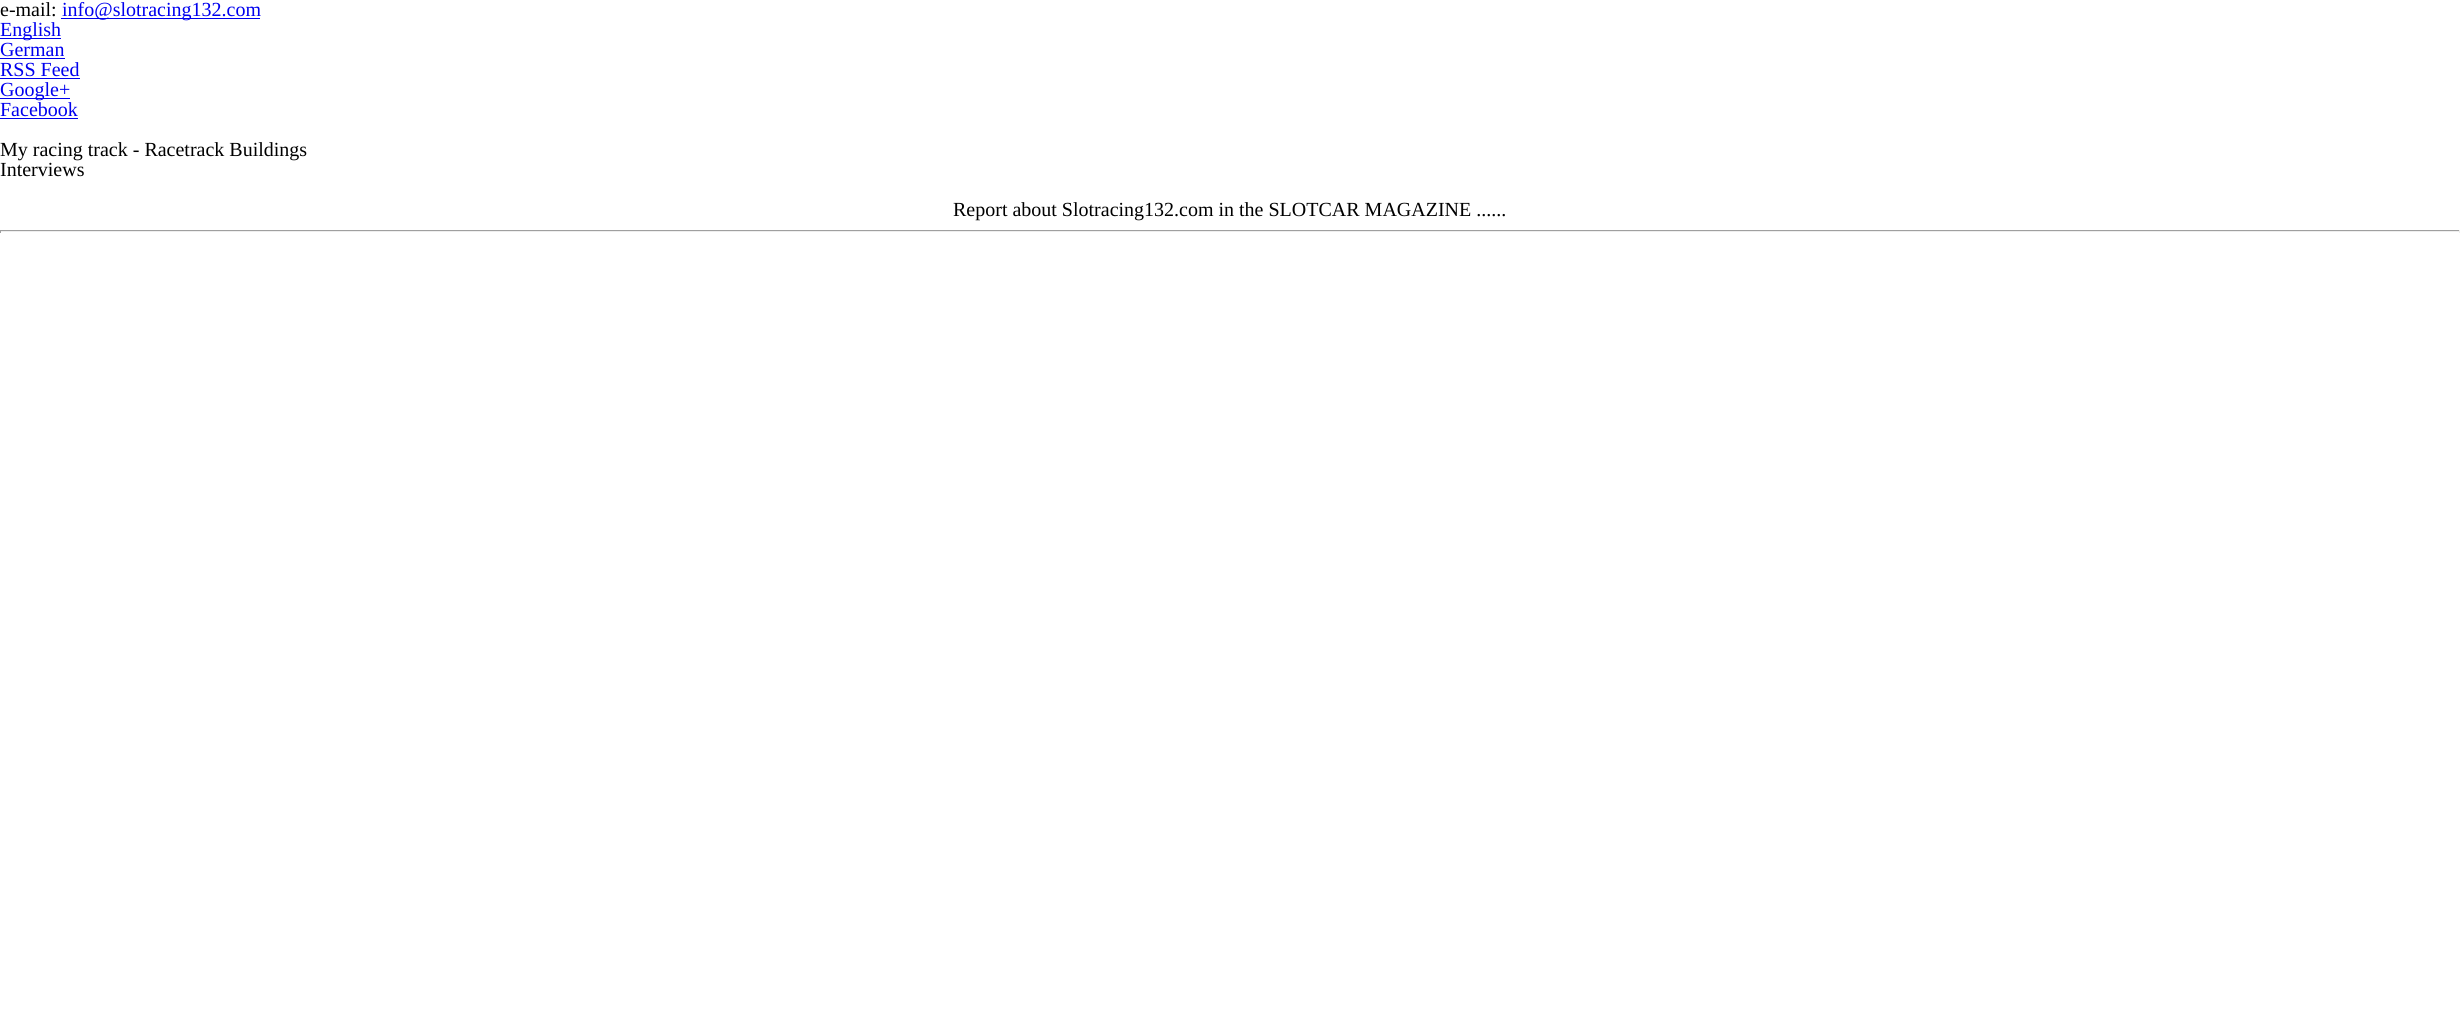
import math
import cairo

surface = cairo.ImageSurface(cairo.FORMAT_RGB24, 2460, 1015)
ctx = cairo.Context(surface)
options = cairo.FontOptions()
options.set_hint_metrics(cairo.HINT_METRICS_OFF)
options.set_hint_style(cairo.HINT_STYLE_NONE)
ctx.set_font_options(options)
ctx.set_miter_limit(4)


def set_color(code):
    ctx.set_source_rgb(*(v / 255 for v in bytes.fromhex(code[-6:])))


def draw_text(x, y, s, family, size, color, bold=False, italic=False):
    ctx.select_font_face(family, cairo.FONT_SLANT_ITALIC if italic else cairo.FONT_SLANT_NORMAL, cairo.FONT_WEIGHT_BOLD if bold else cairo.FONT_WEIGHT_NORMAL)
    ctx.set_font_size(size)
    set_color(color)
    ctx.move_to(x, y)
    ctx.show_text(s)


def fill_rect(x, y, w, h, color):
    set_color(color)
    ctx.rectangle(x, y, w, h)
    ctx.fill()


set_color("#ffffff")
ctx.paint()
draw_text(0, 16, "e-mail:", "Liberation Serif", 20, "#000000")
fill_rect(61, 18, 199, 1, "#0000ee")
draw_text(62, 16, "info@slotracing132.com", "Liberation Serif", 20, "#0000ee")
fill_rect(0, 38, 61, 1, "#0000ee")
draw_text(0, 36, "English", "Liberation Serif", 20, "#0000ee")
draw_text(0, 56, "German", "Liberation Serif", 20, "#0000ee")
fill_rect(0, 58, 65, 1, "#0000ee")
draw_text(0, 76, "RSS Feed", "Liberation Serif", 20, "#0000ee")
fill_rect(0, 78, 80, 1, "#0000ee")
fill_rect(0, 98, 70, 1, "#0000ee")
draw_text(0, 96, "Google+", "Liberation Serif", 20, "#0000ee")
draw_text(0, 116, "Facebook", "Liberation Serif", 20, "#0000ee")
fill_rect(0, 118, 78, 1, "#0000ee")
draw_text(0, 156, "My racing track - Racetrack Buildings", "Liberation Serif", 20, "#000000")
draw_text(0, 176, "Interviews", "Liberation Serif", 20, "#000000")
draw_text(953, 216, "Report about Slotracing132.com in the SLOTCAR MAGAZINE ......", "Liberation Serif", 20, "#000000")
fill_rect(0, 230, 2460, 1, "#9f9f9f")
fill_rect(2459, 230, 1, 3, "#eeeeee")
fill_rect(0, 231, 2460, 1, "#eeeeee")
fill_rect(0, 230, 1, 3, "#9f9f9f")
surface.write_to_png("output.png")
